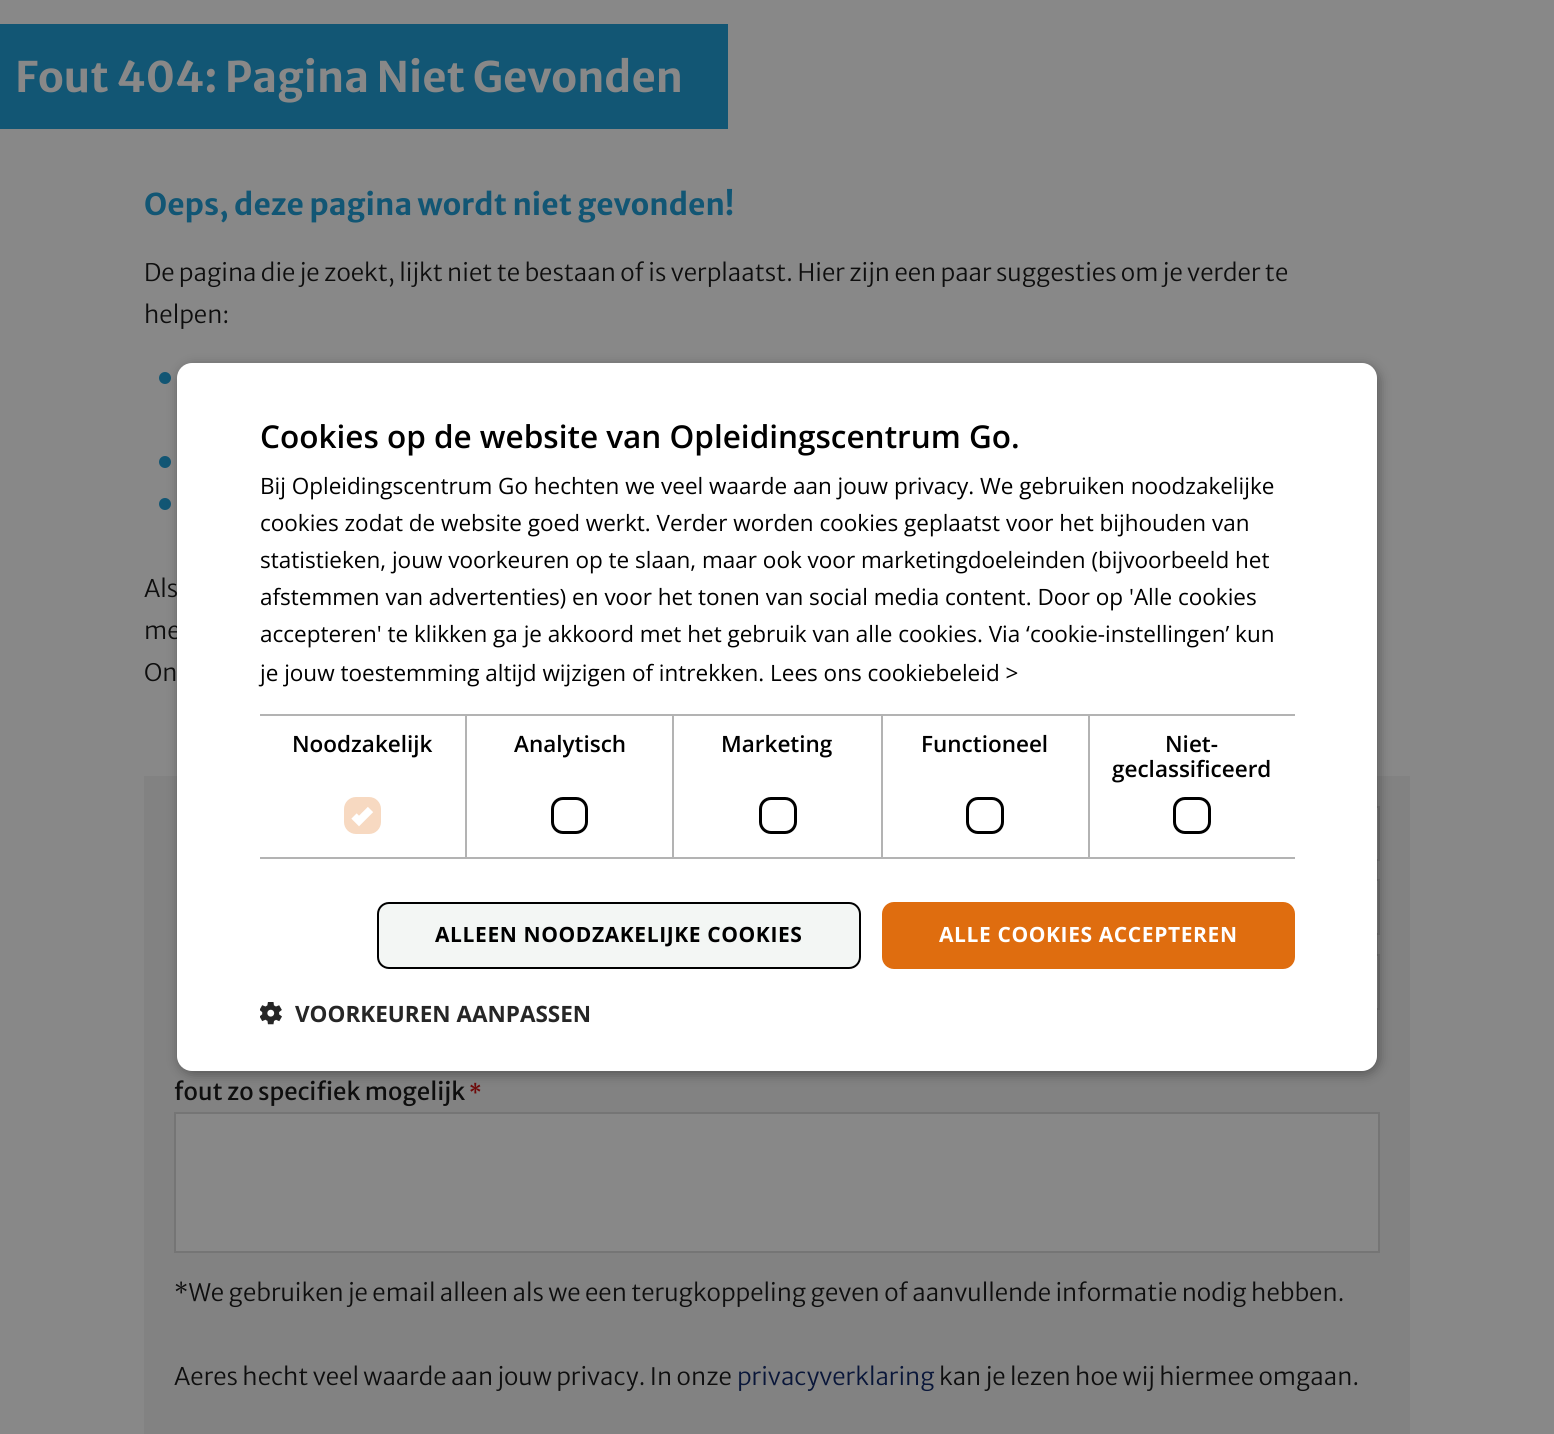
import math
import cairo

surface = cairo.ImageSurface(cairo.FORMAT_RGB24, 1554, 1434)
ctx = cairo.Context(surface)
options = cairo.FontOptions()
options.set_hint_metrics(cairo.HINT_METRICS_OFF)
options.set_hint_style(cairo.HINT_STYLE_NONE)
ctx.set_font_options(options)
ctx.set_miter_limit(4)


def set_color(code):
    ctx.set_source_rgb(*(v / 255 for v in bytes.fromhex(code[-6:])))


def draw_text(x, y, s, family, size, color, bold=False, italic=False):
    ctx.select_font_face(family, cairo.FONT_SLANT_ITALIC if italic else cairo.FONT_SLANT_NORMAL, cairo.FONT_WEIGHT_BOLD if bold else cairo.FONT_WEIGHT_NORMAL)
    ctx.set_font_size(size)
    set_color(color)
    ctx.move_to(x, y)
    ctx.show_text(s)


def draw_spaced(x, y, s, letter, word):
    ctx.move_to(x, y)
    for ch in s:
        ctx.show_text(ch)
        ctx.rel_move_to(letter + word * (ch == ' '), 0)


def fill_rect(x, y, w, h, color):
    set_color(color)
    ctx.rectangle(x, y, w, h)
    ctx.fill()


def rounded_rect(x, y, w, h, r):
    ctx.new_sub_path()
    for i, (u, v) in enumerate([(x + w - r, y + h - r), (x + r, y + h - r), (x + r, y + r), (x + w - r, y + r)]):
        ctx.arc(u, v, r, i * math.pi / 2, (i + 1) * math.pi / 2)
    ctx.close_path()


def draw_shadow(x, y, w, h, r, blur, alpha):
    ctx.push_group_with_content(cairo.CONTENT_ALPHA)
    ctx.set_operator(cairo.OPERATOR_SOURCE)
    for i in range(15, -16, -2):
        e = blur * i / 6
        if min(w, h) + 2 * e > 0:
            ctx.set_source_rgba(0, 0, 0, alpha * math.erfc((i - 1) / 8.5) / 2)
            rounded_rect(x - e, y - e, w + 2 * e, h + 2 * e, max(0, min(r + e + blur * .6, min(w, h) / 2 + e)))
            ctx.fill()
    ctx.mask(ctx.pop_group())


def draw_image(path, x, y, w, h):
    ctx.save()
    ctx.set_source_surface(cairo.ImageSurface.create_from_png(path), x, y)
    ctx.rectangle(x, y, w, h)
    ctx.fill()
    ctx.restore()


set_color("#888888")
ctx.paint()
fill_rect(0, 24, 728, 105, "#125674")
draw_text(15, 92, "Fout 404: Pagina Niet Gevonden", "Merriweather Sans", 42, "#888888", bold=True)
draw_text(144, 215, "Oeps, deze pagina wordt niet gevonden!", "Merriweather Sans", 30, "#125674", bold=True)
draw_text(144, 281, "De pagina die je zoekt, lijkt niet te bestaan of is verplaatst. Hier zijn een paar suggesties om je verder te", "Merriweather Sans Light", 24, "#0e0e0e")
draw_text(144, 323, "helpen:", "Merriweather Sans Light", 24, "#0e0e0e")
set_color("#125674")
ctx.new_path()
ctx.arc(165, 378, 6, 0, 2 * math.pi)
ctx.fill()
ctx.arc(165, 462, 6, 0, 2 * math.pi)
ctx.fill()
ctx.arc(165, 504, 6, 0, 2 * math.pi)
ctx.fill()
draw_text(144, 597, "Als", "Merriweather Sans Light", 24, "#0e0e0e")
draw_text(144, 639, "me", "Merriweather Sans Light", 24, "#0e0e0e")
draw_text(144, 681, "On", "Merriweather Sans Light", 24, "#0e0e0e")
fill_rect(144, 776, 1266, 658, "#828282")
fill_rect(1377, 808, 1, 51, "#888888")
ctx.rectangle(537, 807, 842, 53)
set_color("#757575")
ctx.stroke()
fill_rect(1377, 881, 1, 52, "#888888")
ctx.rectangle(537, 880, 842, 54)
set_color("#757575")
ctx.stroke()
fill_rect(1377, 956, 1, 52, "#888888")
ctx.rectangle(537, 955, 842, 54)
set_color("#757575")
ctx.stroke()
draw_text(174, 1100, "fout zo specifiek mogelijk", "Merriweather Sans", 24, "#0e0e0e")
draw_text(469, 1100, "*", "Merriweather Sans", 21, "#6f0909")
set_color("#888888")
ctx.rectangle(175, 1113, 1204, 139)
ctx.fill_preserve()
set_color("#757575")
ctx.stroke()
draw_text(174, 1301, "*We gebruiken je email alleen als we een terugkoppeling geven of aanvullende informatie nodig hebben.", "Merriweather Sans Light", 24, "#0e0e0e")
draw_text(174, 1385, "Aeres hecht veel waarde aan jouw privacy. In onze", "Merriweather Sans Light", 24, "#0e0e0e")
draw_text(737, 1385, "privacyverklaring", "Merriweather Sans Light", 24, "#091639")
draw_text(939, 1385, "kan je lezen hoe wij hiermee omgaan.", "Merriweather Sans Light", 24, "#0e0e0e")
set_color("#000000")
draw_shadow(179, 366, 1200, 708, 15, 6, 0.35)
set_color("#ffffff")
rounded_rect(177, 363, 1200, 708, 15)
ctx.fill()
draw_text(260, 448, "Cookies op de website van Opleidingscentrum Go.", "Open Sans SemiBold", 31.5, "#000000")
draw_text(260, 494, "Bij Opleidingscentrum Go hechten we veel waarde aan jouw privacy. We gebruiken noodzakelijke", "Open Sans", 22.5, "#000000")
draw_text(260, 531, "cookies zodat de website goed werkt. Verder worden cookies geplaatst voor het bijhouden van", "Open Sans", 22.5, "#000000")
draw_text(260, 568, "statistieken, jouw voorkeuren op te slaan, maar ook voor marketingdoeleinden (bijvoorbeeld het", "Open Sans", 22.5, "#000000")
draw_text(260, 605, "afstemmen van advertenties) en voor het tonen van social media content. Door op 'Alle cookies", "Open Sans", 22.5, "#000000")
draw_text(260, 642, "accepteren' te klikken ga je akkoord met het gebruik van alle cookies. Via ‘cookie-instellingen’ kun", "Open Sans", 22.5, "#000000")
draw_text(260, 681, "je jouw toestemming altijd wijzigen of intrekken. Lees ons cookiebeleid >", "Open Sans", 22.5, "#000000")
fill_rect(260, 714, 622, 2, "#b3b3b3")
fill_rect(465, 714, 2, 144, "#b3b3b3")
fill_rect(260, 857, 207, 2, "#b3b3b3")
draw_text(292, 752, "Noodzakelijk", "Open Sans SemiBold", 22.5, "#000000")
set_color("#f7d9c1")
rounded_rect(344, 797, 37, 37, 12)
ctx.fill()
ctx.new_path()
ctx.move_to(354, 816)
ctx.line_to(359, 821)
ctx.line_to(370.5, 809.5)
set_color("#ffffff")
ctx.set_line_width(7.5)
ctx.stroke()
fill_rect(672, 714, 2, 144, "#b3b3b3")
fill_rect(467, 857, 207, 2, "#b3b3b3")
draw_text(514, 752, "Analytisch", "Open Sans SemiBold", 22.5, "#000000")
rounded_rect(552.5, 798.5, 34, 34, 10.5)
ctx.set_line_width(3)
ctx.stroke()
fill_rect(881, 714, 2, 144, "#b3b3b3")
fill_rect(674, 857, 208, 2, "#b3b3b3")
draw_text(721, 752, "Marketing", "Open Sans SemiBold", 22.5, "#000000")
rounded_rect(760.5, 798.5, 35, 34, 10.5)
ctx.stroke()
fill_rect(882, 714, 207, 2, "#b3b3b3")
fill_rect(1088, 714, 2, 144, "#b3b3b3")
fill_rect(882, 857, 413, 2, "#b3b3b3")
draw_text(921, 752, "Functioneel", "Open Sans SemiBold", 22.5, "#000000")
rounded_rect(967.5, 798.5, 35, 34, 10.5)
ctx.stroke()
fill_rect(1089, 714, 206, 2, "#b3b3b3")
draw_text(1165, 752, "Niet-", "Open Sans SemiBold", 22.5, "#000000")
draw_text(1112, 777, "geclassificeerd", "Open Sans SemiBold", 22.5, "#000000")
rounded_rect(1174.5, 798.5, 35, 34, 10.5)
ctx.stroke()
set_color("#f3f6f4")
rounded_rect(378, 903, 482, 65, 11)
ctx.fill_preserve()
set_color("#000000")
ctx.set_line_width(2)
ctx.stroke()
ctx.select_font_face("Open Sans", cairo.FONT_SLANT_NORMAL, cairo.FONT_WEIGHT_BOLD)
ctx.set_font_size(21)
draw_spaced(435, 942, "ALLEEN NOODZAKELIJKE COOKIES", 0.6, 0)
set_color("#df6d0f")
rounded_rect(882, 902, 413, 67, 12)
ctx.fill()
set_color("#ffffff")
draw_spaced(939, 942, "ALLE COOKIES ACCEPTEREN", 0.6, 0)
draw_image("assets/img1.png", 260, 1002, 22, 23)
draw_text(295, 1022, "VOORKEUREN AANPASSEN", "Open Sans", 22.5, "#262626", bold=True)
surface.write_to_png("output.png")
